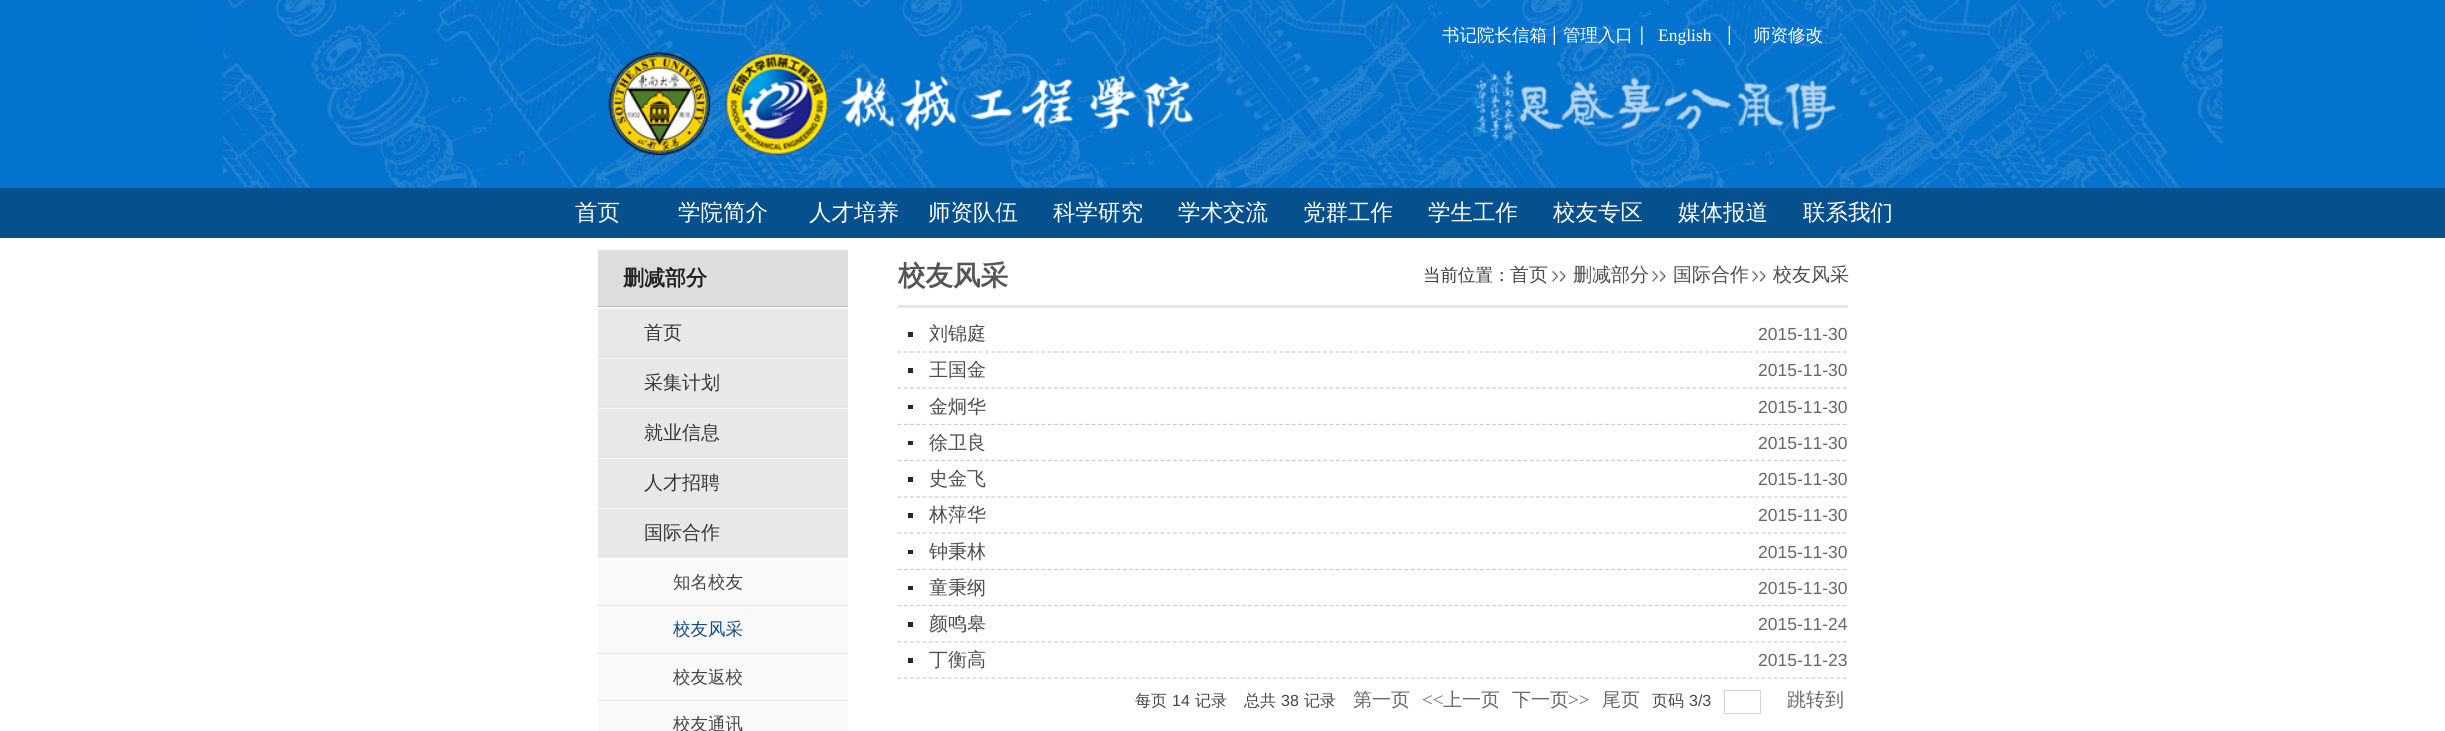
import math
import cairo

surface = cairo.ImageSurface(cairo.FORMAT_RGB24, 2445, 731)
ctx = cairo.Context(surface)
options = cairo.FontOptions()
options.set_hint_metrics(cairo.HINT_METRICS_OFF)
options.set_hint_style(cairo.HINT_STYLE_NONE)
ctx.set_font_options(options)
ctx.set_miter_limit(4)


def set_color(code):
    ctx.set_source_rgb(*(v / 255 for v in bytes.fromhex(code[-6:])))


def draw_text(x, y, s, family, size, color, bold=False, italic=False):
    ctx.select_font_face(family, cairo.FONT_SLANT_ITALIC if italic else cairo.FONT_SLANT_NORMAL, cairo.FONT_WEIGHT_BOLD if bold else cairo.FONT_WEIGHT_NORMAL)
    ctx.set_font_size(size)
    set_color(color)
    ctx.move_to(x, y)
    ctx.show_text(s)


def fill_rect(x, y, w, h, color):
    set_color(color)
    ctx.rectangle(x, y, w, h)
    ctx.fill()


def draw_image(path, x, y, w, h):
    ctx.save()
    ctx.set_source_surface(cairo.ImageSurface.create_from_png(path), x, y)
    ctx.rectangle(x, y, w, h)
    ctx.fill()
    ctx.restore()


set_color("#ffffff")
ctx.paint()
fill_rect(0, 0, 2445, 188, "#0373ce")
draw_image("assets/img1.png", 222, 0, 2001, 188)
draw_text(1442, 41, "书记院长信箱", "WenQuanYi Zen Hei Medium", 17.5, "#ffffff")
draw_image("assets/img2.png", 1553, 26, 2, 19)
draw_text(1563, 41, "管理入口", "WenQuanYi Zen Hei Medium", 17.5, "#ffffff")
draw_image("assets/img3.png", 1641, 26, 2, 19)
draw_text(1658, 41, "English", "Liberation Serif", 17.5, "#ffffff")
draw_image("assets/img4.png", 1728, 26, 2, 19)
draw_text(1753, 41, "师资修改", "WenQuanYi Zen Hei Medium", 17.5, "#ffffff")
fill_rect(0, 188, 2445, 50, "#06508d")
draw_text(575, 220, "首页", "WenQuanYi Zen Hei Medium", 22.5, "#ffffff")
draw_text(678, 220, "学院简介", "WenQuanYi Zen Hei Medium", 22.5, "#ffffff")
draw_text(809, 220, "人才培养", "WenQuanYi Zen Hei Medium", 22.5, "#ffffff")
draw_text(928, 220, "师资队伍", "WenQuanYi Zen Hei Medium", 22.5, "#ffffff")
draw_text(1053, 220, "科学研究", "WenQuanYi Zen Hei Medium", 22.5, "#ffffff")
draw_text(1178, 220, "学术交流", "WenQuanYi Zen Hei Medium", 22.5, "#ffffff")
draw_text(1303, 220, "党群工作", "WenQuanYi Zen Hei Medium", 22.5, "#ffffff")
draw_text(1428, 220, "学生工作", "WenQuanYi Zen Hei Medium", 22.5, "#ffffff")
draw_text(1553, 220, "校友专区", "WenQuanYi Zen Hei Medium", 22.5, "#ffffff")
draw_text(1678, 220, "媒体报道", "WenQuanYi Zen Hei Medium", 22.5, "#ffffff")
draw_text(1803, 220, "联系我们", "WenQuanYi Zen Hei Medium", 22.5, "#ffffff")
fill_rect(598, 250, 250, 56, "#dddddd")
draw_text(623, 285, "删减部分", "WenQuanYi Zen Hei", 21, "#222222", bold=True)
fill_rect(598, 306, 250, 1, "#bbbbbb")
fill_rect(598, 309, 250, 49, "#e8e8e8")
fill_rect(598, 308, 250, 1, "#f4f4f4")
fill_rect(598, 356, 250, 1, "#e3e3e3")
draw_text(644, 339, "首页", "WenQuanYi Zen Hei Medium", 19, "#383838")
fill_rect(598, 359, 250, 49, "#e8e8e8")
fill_rect(598, 358, 250, 1, "#f4f4f4")
fill_rect(598, 406, 250, 1, "#e3e3e3")
draw_text(644, 389, "采集计划", "WenQuanYi Zen Hei Medium", 19, "#383838")
fill_rect(598, 409, 250, 49, "#e8e8e8")
fill_rect(598, 408, 250, 1, "#f4f4f4")
fill_rect(598, 456, 250, 1, "#e3e3e3")
draw_text(644, 439, "就业信息", "WenQuanYi Zen Hei Medium", 19, "#383838")
fill_rect(598, 459, 250, 49, "#e8e8e8")
fill_rect(598, 458, 250, 1, "#f4f4f4")
fill_rect(598, 506, 250, 1, "#e3e3e3")
draw_text(644, 489, "人才招聘", "WenQuanYi Zen Hei Medium", 19, "#383838")
fill_rect(598, 509, 250, 49, "#e8e8e8")
fill_rect(598, 508, 250, 1, "#f4f4f4")
fill_rect(598, 556, 250, 1, "#e3e3e3")
draw_text(644, 539, "国际合作", "WenQuanYi Zen Hei Medium", 19, "#383838")
fill_rect(598, 560, 250, 45, "#f9f9f9")
fill_rect(598, 605, 250, 1, "#e8e1e1")
draw_text(673, 588, "知名校友", "WenQuanYi Zen Hei Medium", 17.5, "#454545")
fill_rect(598, 607, 250, 46, "#f9f9f9")
fill_rect(598, 653, 250, 1, "#e8e1e1")
draw_text(673, 635, "校友风采", "WenQuanYi Zen Hei Medium", 17.5, "#124d83")
fill_rect(598, 655, 250, 45, "#f9f9f9")
fill_rect(598, 700, 250, 1, "#e8e1e1")
draw_text(673, 683, "校友返校", "WenQuanYi Zen Hei Medium", 17.5, "#454545")
fill_rect(598, 702, 250, 29, "#f9f9f9")
draw_text(673, 730, "校友通讯", "WenQuanYi Zen Hei Medium", 17.5, "#454545")
fill_rect(898, 305, 950, 3, "#e5e5e5")
draw_text(898, 285, "校友风采", "WenQuanYi Zen Hei", 27.5, "#555555", bold=True)
draw_text(1423, 281, "当前位置：", "WenQuanYi Zen Hei Medium", 17.5, "#383838")
draw_text(1510, 281, "首页", "WenQuanYi Zen Hei Medium", 19, "#4d4d4d")
draw_image("assets/img5.png", 1552, 270, 14, 12)
draw_text(1573, 281, "删减部分", "WenQuanYi Zen Hei Medium", 19, "#4d4d4d")
draw_image("assets/img5.png", 1652, 270, 14, 12)
draw_text(1673, 281, "国际合作", "WenQuanYi Zen Hei Medium", 19, "#4d4d4d")
draw_image("assets/img5.png", 1752, 270, 14, 12)
draw_text(1773, 281, "校友风采", "WenQuanYi Zen Hei Medium", 19, "#4d4d4d")
ctx.new_path()
ctx.move_to(897.5, 352)
ctx.line_to(1847.5, 352)
set_color("#cccccc")
ctx.set_line_width(1.2)
ctx.set_dash([3.75, 2.51])
ctx.stroke()
fill_rect(908, 332, 5, 5, "#242628")
draw_text(929, 340, "刘锦庭", "WenQuanYi Zen Hei Medium", 19, "#4d4d4d")
draw_text(1758, 340, "2015-11-30", "Liberation Sans", 17.5, "#666666")
ctx.new_path()
ctx.move_to(897.5, 388)
ctx.line_to(1847.5, 388)
set_color("#cccccc")
ctx.stroke()
fill_rect(908, 368, 5, 5, "#242628")
draw_text(929, 376, "王国金", "WenQuanYi Zen Hei Medium", 19, "#4d4d4d")
draw_text(1758, 376, "2015-11-30", "Liberation Sans", 17.5, "#666666")
ctx.new_path()
ctx.move_to(897.5, 424.5)
ctx.line_to(1847.5, 424.5)
set_color("#cccccc")
ctx.stroke()
fill_rect(908, 405, 5, 4, "#242628")
draw_text(929, 413, "金炯华", "WenQuanYi Zen Hei Medium", 19, "#4d4d4d")
draw_text(1758, 413, "2015-11-30", "Liberation Sans", 17.5, "#666666")
ctx.new_path()
ctx.move_to(897.5, 460.5)
ctx.line_to(1847.5, 460.5)
set_color("#cccccc")
ctx.stroke()
fill_rect(908, 441, 5, 4, "#242628")
draw_text(929, 449, "徐卫良", "WenQuanYi Zen Hei Medium", 19, "#4d4d4d")
draw_text(1758, 449, "2015-11-30", "Liberation Sans", 17.5, "#666666")
ctx.new_path()
ctx.move_to(897.5, 497)
ctx.line_to(1847.5, 497)
set_color("#cccccc")
ctx.stroke()
fill_rect(908, 477, 5, 5, "#242628")
draw_text(929, 485, "史金飞", "WenQuanYi Zen Hei Medium", 19, "#4d4d4d")
draw_text(1758, 485, "2015-11-30", "Liberation Sans", 17.5, "#666666")
ctx.new_path()
ctx.move_to(897.5, 533)
ctx.line_to(1847.5, 533)
set_color("#cccccc")
ctx.stroke()
fill_rect(908, 513, 5, 5, "#242628")
draw_text(929, 521, "林萍华", "WenQuanYi Zen Hei Medium", 19, "#4d4d4d")
draw_text(1758, 521, "2015-11-30", "Liberation Sans", 17.5, "#666666")
ctx.new_path()
ctx.move_to(897.5, 569.5)
ctx.line_to(1847.5, 569.5)
set_color("#cccccc")
ctx.stroke()
fill_rect(908, 550, 5, 4, "#242628")
draw_text(929, 558, "钟秉林", "WenQuanYi Zen Hei Medium", 19, "#4d4d4d")
draw_text(1758, 558, "2015-11-30", "Liberation Sans", 17.5, "#666666")
ctx.new_path()
ctx.move_to(897.5, 605.5)
ctx.line_to(1847.5, 605.5)
set_color("#cccccc")
ctx.stroke()
fill_rect(908, 586, 5, 4, "#242628")
draw_text(929, 594, "童秉纲", "WenQuanYi Zen Hei Medium", 19, "#4d4d4d")
draw_text(1758, 594, "2015-11-30", "Liberation Sans", 17.5, "#666666")
ctx.new_path()
ctx.move_to(897.5, 642)
ctx.line_to(1847.5, 642)
set_color("#cccccc")
ctx.stroke()
fill_rect(908, 622, 5, 5, "#242628")
draw_text(929, 630, "颜鸣皋", "WenQuanYi Zen Hei Medium", 19, "#4d4d4d")
draw_text(1758, 630, "2015-11-24", "Liberation Sans", 17.5, "#666666")
ctx.new_path()
ctx.move_to(897.5, 678)
ctx.line_to(1847.5, 678)
set_color("#cccccc")
ctx.stroke()
fill_rect(908, 658, 5, 5, "#242628")
draw_text(929, 666, "丁衡高", "WenQuanYi Zen Hei Medium", 19, "#4d4d4d")
draw_text(1758, 666, "2015-11-23", "Liberation Sans", 17.5, "#666666")
draw_text(1135, 706, "每页", "WenQuanYi Zen Hei Medium", 16, "#454545")
draw_text(1172, 706, "14", "Liberation Sans", 16, "#454545")
draw_text(1195, 706, "记录", "WenQuanYi Zen Hei Medium", 16, "#454545")
draw_text(1244, 706, "总共", "WenQuanYi Zen Hei Medium", 16, "#454545")
draw_text(1281, 706, "38", "Liberation Sans", 16, "#454545")
draw_text(1304, 706, "记录", "WenQuanYi Zen Hei Medium", 16, "#454545")
draw_text(1353, 706, "第一页", "WenQuanYi Zen Hei Medium", 19, "#666666")
draw_text(1422, 706, "<<", "Liberation Serif", 19, "#666666")
draw_text(1443, 706, "上一页", "WenQuanYi Zen Hei Medium", 19, "#666666")
draw_text(1512, 706, "下一页", "WenQuanYi Zen Hei Medium", 19, "#666666")
draw_text(1568, 706, ">>", "Liberation Serif", 19, "#666666")
draw_text(1602, 706, "尾页", "WenQuanYi Zen Hei Medium", 19, "#666666")
draw_text(1652, 706, "页码", "WenQuanYi Zen Hei Medium", 16, "#454545")
draw_text(1689, 706, "3/3", "Liberation Sans", 16, "#454545")
ctx.rectangle(1724.5, 690.5, 36, 23)
set_color("#d5d5d5")
ctx.set_line_width(1)
ctx.set_dash([])
ctx.stroke()
draw_text(1787, 706, "跳转到", "WenQuanYi Zen Hei Medium", 19, "#666666")
surface.write_to_png("output.png")
